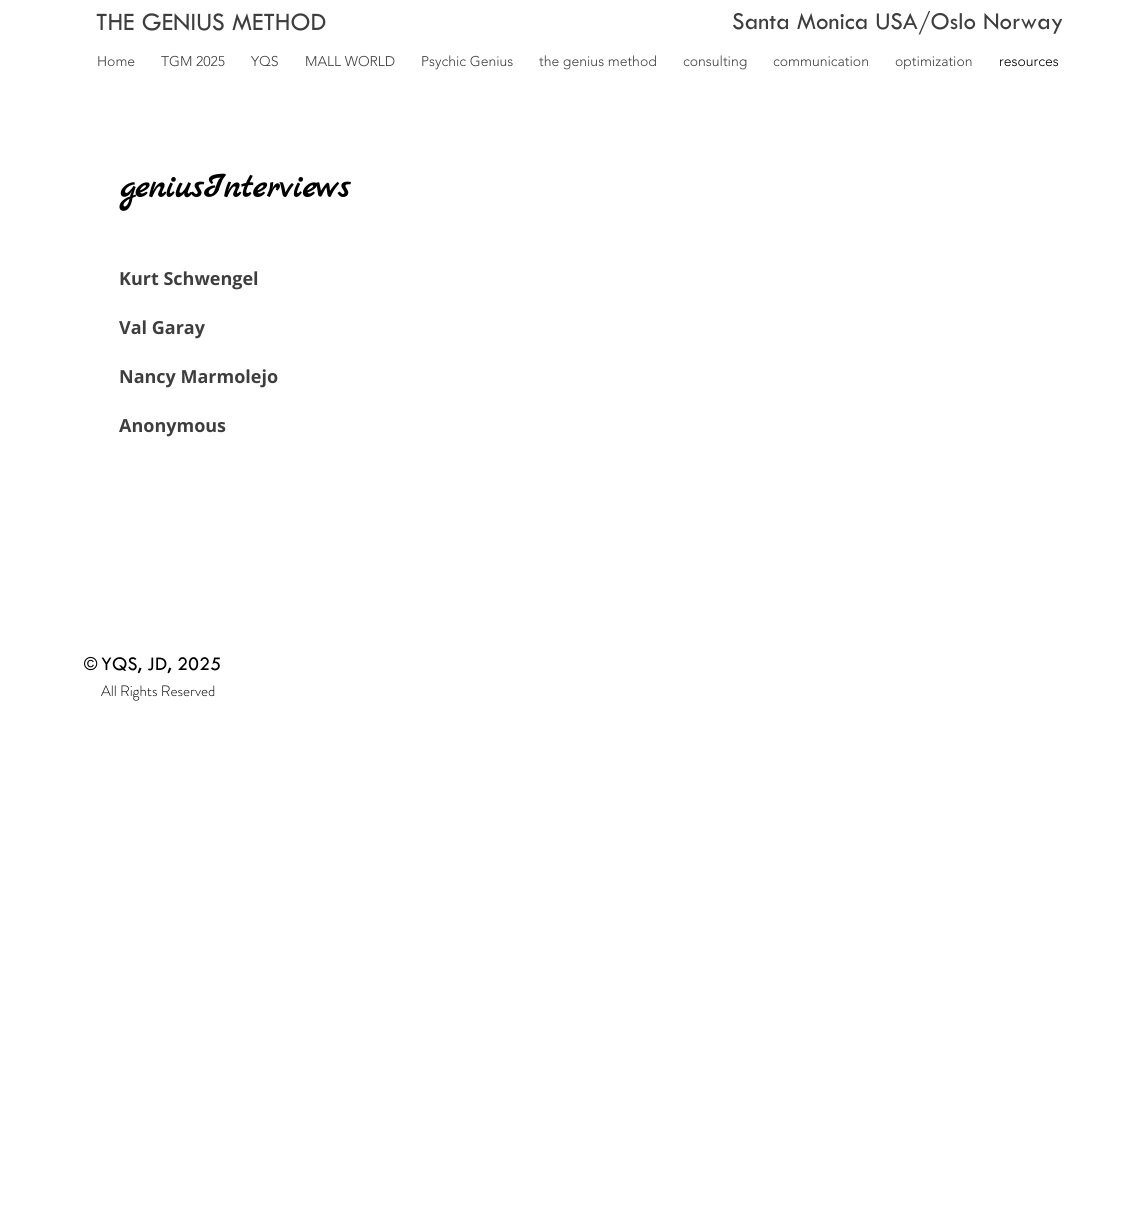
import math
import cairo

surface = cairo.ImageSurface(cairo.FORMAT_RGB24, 1148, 1210)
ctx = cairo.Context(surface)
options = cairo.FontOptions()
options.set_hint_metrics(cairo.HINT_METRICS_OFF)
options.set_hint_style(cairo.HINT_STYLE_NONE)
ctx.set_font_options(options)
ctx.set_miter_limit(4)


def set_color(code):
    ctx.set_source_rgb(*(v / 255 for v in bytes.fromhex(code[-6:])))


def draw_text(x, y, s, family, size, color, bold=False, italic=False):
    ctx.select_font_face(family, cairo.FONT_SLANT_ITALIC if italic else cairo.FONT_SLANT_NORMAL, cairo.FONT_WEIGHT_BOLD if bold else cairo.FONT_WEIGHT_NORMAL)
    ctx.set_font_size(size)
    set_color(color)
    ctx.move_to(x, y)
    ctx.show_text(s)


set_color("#ffffff")
ctx.paint()
draw_text(96, 30, "THE GENIUS METHOD", "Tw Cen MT", 26, "#3e3e3e")
draw_text(732, 29, "Santa Monica USA/Oslo Norway", "Tw Cen MT", 25, "#3e3e3e")
draw_text(97, 66, "Home", "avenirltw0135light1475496 Light", 14, "#3e3e3e")
draw_text(161, 66, "TGM 2025", "avenirltw0135light1475496 Light", 14, "#3e3e3e")
draw_text(251, 66, "YQS", "avenirltw0135light1475496 Light", 14, "#3e3e3e")
draw_text(305, 66, "MALL WORLD", "avenirltw0135light1475496 Light", 14, "#3e3e3e")
draw_text(421, 66, "Psychic Genius", "avenirltw0135light1475496 Light", 14, "#3e3e3e")
draw_text(539, 66, "the genius method", "avenirltw0135light1475496 Light", 14, "#3e3e3e")
draw_text(683, 66, "consulting", "avenirltw0135light1475496 Light", 14, "#3e3e3e")
draw_text(773, 66, "communication", "avenirltw0135light1475496 Light", 14, "#3e3e3e")
draw_text(895, 66, "optimization", "avenirltw0135light1475496 Light", 14, "#3e3e3e")
draw_text(999, 66, "resources", "avenirltw0135light1475496 Light", 14, "#000000")
draw_text(119, 197, "geniusInterviews", "Marck Script", 36, "#000000", bold=True)
draw_text(119, 285, "Kurt Schwengel", "Open Sans", 18, "#3e3e3e", bold=True)
draw_text(119, 334, "Val Garay", "Open Sans", 18, "#3e3e3e", bold=True)
draw_text(119, 383, "Nancy Marmolejo", "Open Sans", 18, "#3e3e3e", bold=True)
draw_text(119, 432, "Anonymous", "Open Sans", 18, "#3e3e3e", bold=True)
draw_text(84, 670, "©", "Tw Cen MT", 18, "#000000")
draw_text(101, 670, "YQS, JD, 2025", "Tw Cen MT", 20, "#000000")
draw_text(101, 696, "All Rights Reserved", "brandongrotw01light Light", 15, "#000000")
surface.write_to_png("output.png")
